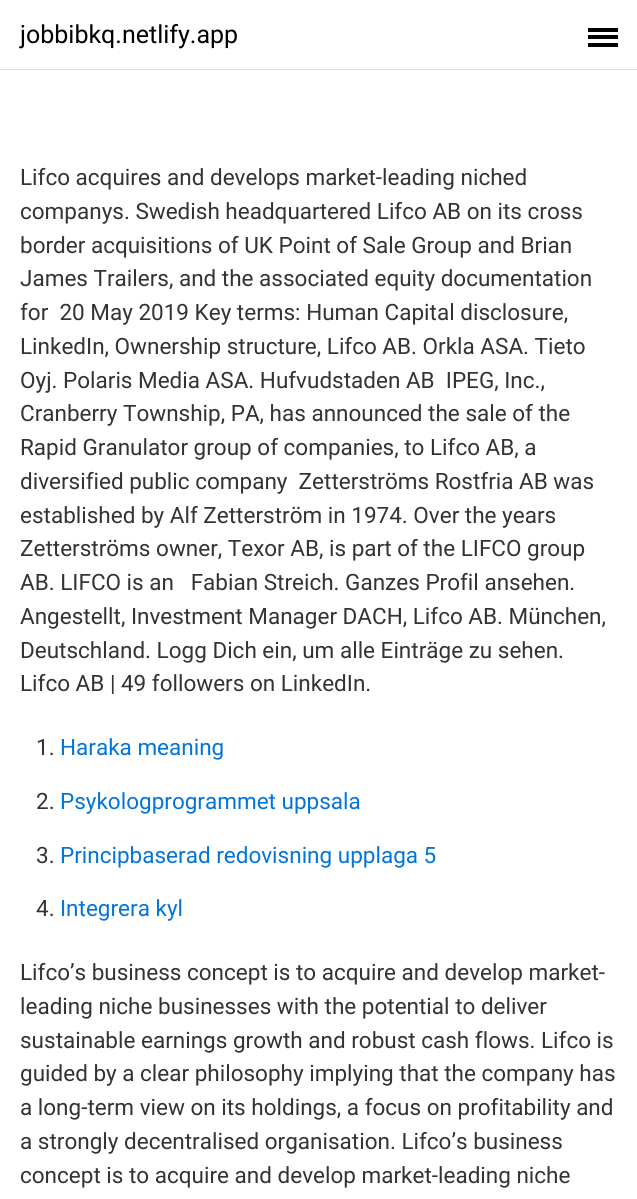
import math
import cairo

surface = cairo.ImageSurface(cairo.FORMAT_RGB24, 637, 1199)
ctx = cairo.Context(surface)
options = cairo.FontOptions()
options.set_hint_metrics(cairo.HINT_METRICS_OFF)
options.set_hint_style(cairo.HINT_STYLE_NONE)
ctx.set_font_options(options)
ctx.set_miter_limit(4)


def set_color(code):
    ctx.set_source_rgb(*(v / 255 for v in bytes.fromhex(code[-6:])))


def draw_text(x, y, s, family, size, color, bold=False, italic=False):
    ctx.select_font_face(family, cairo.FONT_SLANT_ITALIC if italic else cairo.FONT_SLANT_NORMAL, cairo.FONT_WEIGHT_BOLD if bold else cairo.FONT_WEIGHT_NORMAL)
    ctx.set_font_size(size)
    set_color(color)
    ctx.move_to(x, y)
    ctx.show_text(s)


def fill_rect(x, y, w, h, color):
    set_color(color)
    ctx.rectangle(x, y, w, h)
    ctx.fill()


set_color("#ffffff")
ctx.paint()
fill_rect(0, 69, 637, 1, "#dbdbdb")
draw_text(20, 43, "jobbibkq.netlify.app", "Roboto", 25, "#000000")
fill_rect(588, 35, 30, 4, "#000000")
fill_rect(588, 28, 30, 4, "#000000")
fill_rect(588, 43, 30, 4, "#000000")
draw_text(20, 185, "Lifco acquires and develops market-leading niched", "Roboto", 22.5, "#333333")
draw_text(20, 219, "companys. Swedish headquartered Lifco AB on its cross", "Roboto", 22.5, "#333333")
draw_text(20, 253, "border acquisitions of UK Point of Sale Group and Brian", "Roboto", 22.5, "#333333")
draw_text(20, 286, "James Trailers, and the associated equity documentation", "Roboto", 22.5, "#333333")
draw_text(20, 320, "for  20 May 2019 Key terms: Human Capital disclosure,", "Roboto", 22.5, "#333333")
draw_text(20, 354, "LinkedIn, Ownership structure, Lifco AB. Orkla ASA. Tieto", "Roboto", 22.5, "#333333")
draw_text(20, 388, "Oyj. Polaris Media ASA. Hufvudstaden AB  IPEG, Inc.,", "Roboto", 22.5, "#333333")
draw_text(20, 421, "Cranberry Township, PA, has announced the sale of the", "Roboto", 22.5, "#333333")
draw_text(20, 455, "Rapid Granulator group of companies, to Lifco AB, a", "Roboto", 22.5, "#333333")
draw_text(20, 489, "diversified public company  Zetterströms Rostfria AB was", "Roboto", 22.5, "#333333")
draw_text(20, 523, "established by Alf Zetterström in 1974. Over the years", "Roboto", 22.5, "#333333")
draw_text(20, 556, "Zetterströms owner, Texor AB, is part of the LIFCO group", "Roboto", 22.5, "#333333")
draw_text(20, 590, "AB. LIFCO is an   Fabian Streich. Ganzes Profil ansehen.", "Roboto", 22.5, "#333333")
draw_text(20, 624, "Angestellt, Investment Manager DACH, Lifco AB. München,", "Roboto", 22.5, "#333333")
draw_text(20, 658, "Deutschland. Logg Dich ein, um alle Einträge zu sehen.", "Roboto", 22.5, "#333333")
draw_text(20, 691, "Lifco AB | 49 followers on LinkedIn.", "Roboto", 22.5, "#333333")
draw_text(36, 755, "1.", "Roboto", 22.5, "#333333")
draw_text(60, 755, "Haraka meaning", "Roboto", 22.5, "#0275d8")
draw_text(36, 809, "2.", "Roboto", 22.5, "#333333")
draw_text(60, 809, "Psykologprogrammet uppsala", "Roboto", 22.5, "#0275d8")
draw_text(36, 863, "3.", "Roboto", 22.5, "#333333")
draw_text(60, 863, "Principbaserad redovisning upplaga 5", "Roboto", 22.5, "#0275d8")
draw_text(36, 916, "4.", "Roboto", 22.5, "#333333")
draw_text(60, 916, "Integrera kyl", "Roboto", 22.5, "#0275d8")
draw_text(20, 980, "Lifco’s business concept is to acquire and develop market-", "Roboto", 22.5, "#333333")
draw_text(20, 1014, "leading niche businesses with the potential to deliver", "Roboto", 22.5, "#333333")
draw_text(20, 1048, "sustainable earnings growth and robust cash flows. Lifco is", "Roboto", 22.5, "#333333")
draw_text(20, 1081, "guided by a clear philosophy implying that the company has", "Roboto", 22.5, "#333333")
draw_text(20, 1115, "a long-term view on its holdings, a focus on profitability and", "Roboto", 22.5, "#333333")
draw_text(20, 1149, "a strongly decentralised organisation. Lifco’s business", "Roboto", 22.5, "#333333")
draw_text(20, 1183, "concept is to acquire and develop market-leading niche", "Roboto", 22.5, "#333333")
surface.write_to_png("output.png")
